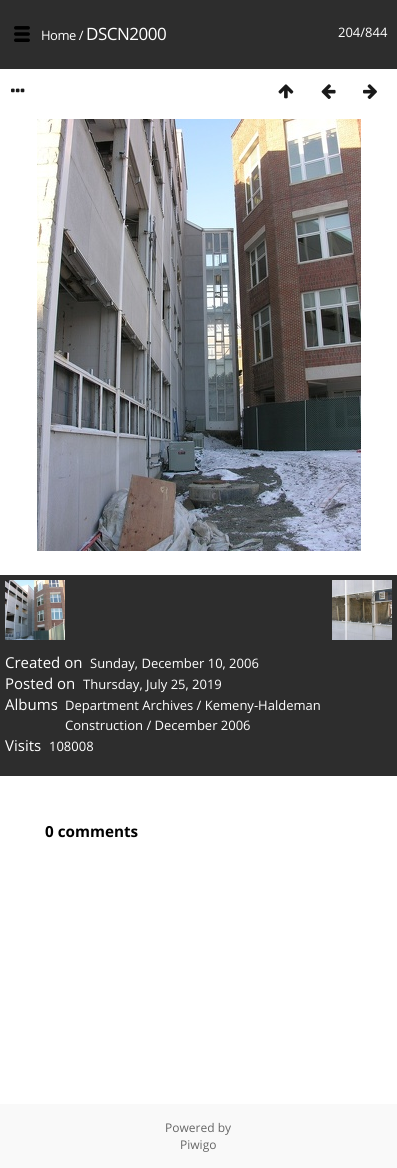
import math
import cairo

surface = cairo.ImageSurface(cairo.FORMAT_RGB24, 397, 1168)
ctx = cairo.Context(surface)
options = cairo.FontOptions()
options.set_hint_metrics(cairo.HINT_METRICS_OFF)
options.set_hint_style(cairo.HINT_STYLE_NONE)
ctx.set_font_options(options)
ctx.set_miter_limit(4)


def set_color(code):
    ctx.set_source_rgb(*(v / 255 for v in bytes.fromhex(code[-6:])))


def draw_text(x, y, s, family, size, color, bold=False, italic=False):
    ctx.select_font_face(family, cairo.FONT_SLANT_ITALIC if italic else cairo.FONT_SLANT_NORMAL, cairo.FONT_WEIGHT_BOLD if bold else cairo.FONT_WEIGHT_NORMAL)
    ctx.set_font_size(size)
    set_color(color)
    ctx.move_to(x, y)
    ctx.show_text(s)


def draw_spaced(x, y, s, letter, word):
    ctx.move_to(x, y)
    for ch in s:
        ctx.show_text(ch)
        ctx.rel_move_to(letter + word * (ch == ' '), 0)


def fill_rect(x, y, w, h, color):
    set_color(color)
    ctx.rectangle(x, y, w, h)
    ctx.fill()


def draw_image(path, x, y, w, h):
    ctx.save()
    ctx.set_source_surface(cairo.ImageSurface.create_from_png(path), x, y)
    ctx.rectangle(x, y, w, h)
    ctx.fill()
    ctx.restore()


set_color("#ffffff")
ctx.paint()
fill_rect(0, 0, 397, 69, "#2d2d2d")
draw_image("assets/img1.png", 14, 26, 16, 16)
ctx.select_font_face("Open Sans")
ctx.set_font_size(13)
set_color("#ffffff")
draw_spaced(41, 40, "Home /", -0.5, 0)
ctx.set_font_size(17)
draw_spaced(86, 40, "DSCN2000", -0.5, 0)
draw_text(338, 37, "204/844", "Open Sans", 13, "#ffffff")
draw_image("assets/img2.png", 11, 88, 14, 5)
draw_image("assets/img3.png", 278, 84, 16, 15)
draw_image("assets/img4.png", 321, 84, 15, 15)
draw_image("assets/img5.png", 363, 84, 14, 15)
draw_image("assets/img6.png", 37, 119, 324, 432)
fill_rect(0, 575, 397, 201, "#2d2d2d")
draw_image("assets/img7.png", 5, 580, 60, 60)
draw_image("assets/img8.png", 332, 580, 60, 60)
draw_text(5, 668, "Created on", "Open Sans", 15, "#ffffff")
draw_text(90, 668, "Sunday, December 10, 2006", "Open Sans", 13, "#ffffff")
draw_text(5, 689, "Posted on", "Open Sans", 15, "#ffffff")
draw_text(83, 689, "Thursday, July 25, 2019", "Open Sans", 13, "#ffffff")
draw_text(5, 710, "Albums", "Open Sans", 15, "#ffffff")
draw_text(65, 710, "Department Archives / Kemeny-Haldeman", "Open Sans", 13, "#ffffff")
draw_text(65, 730, "Construction / December 2006", "Open Sans", 13, "#ffffff")
draw_text(5, 751, "Visits", "Open Sans", 15, "#ffffff")
draw_text(49, 751, "108008", "Open Sans", 13, "#ffffff")
draw_text(45, 837, "0 comments", "Open Sans", 15.25, "#000000", bold=True)
fill_rect(0, 1104, 397, 64, "#f9f9f9")
draw_text(165, 1132, "Powered by", "Open Sans", 12, "#666666")
draw_text(180, 1149, "Piwigo", "Open Sans", 12, "#666666")
surface.write_to_png("output.png")
